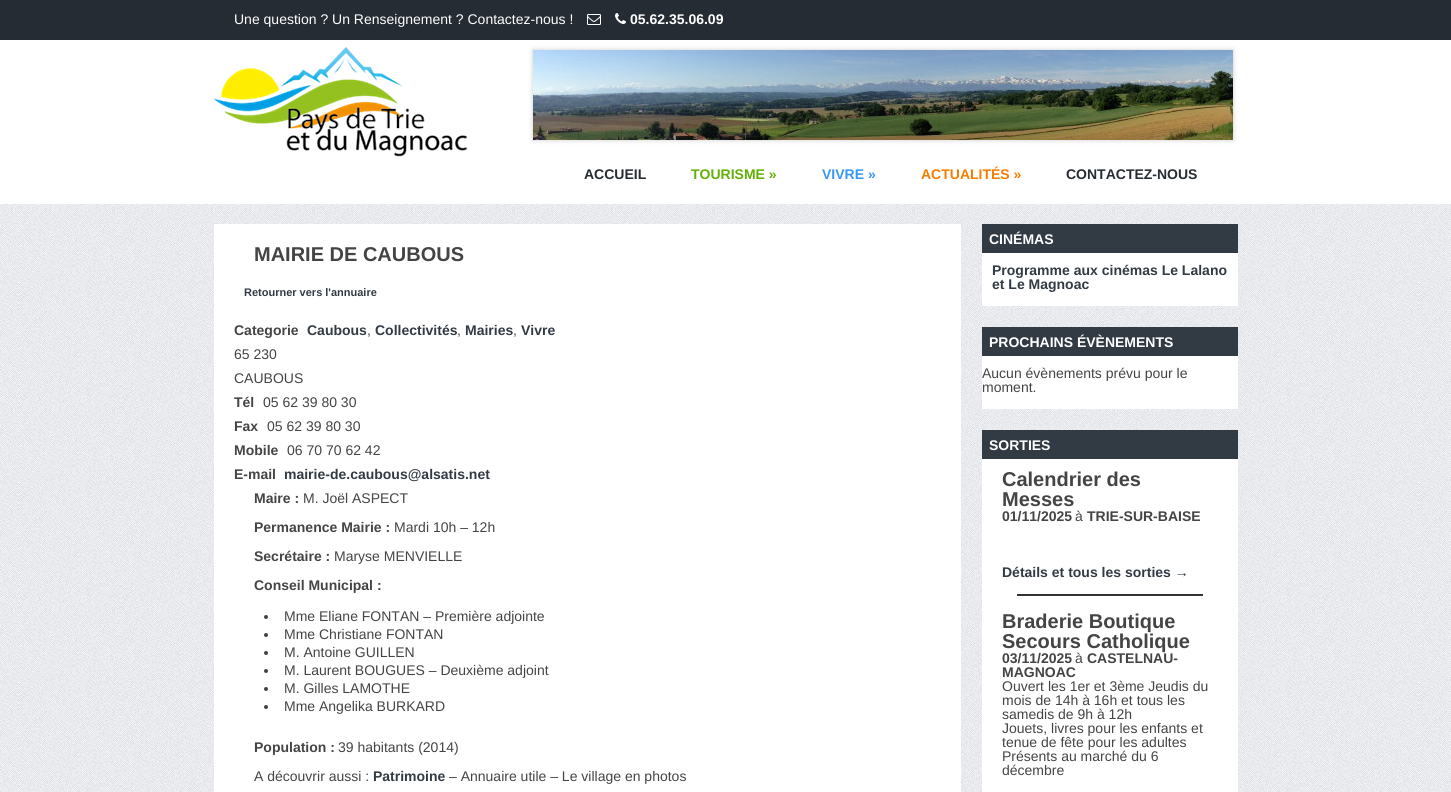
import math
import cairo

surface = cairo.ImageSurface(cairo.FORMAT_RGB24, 1451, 792)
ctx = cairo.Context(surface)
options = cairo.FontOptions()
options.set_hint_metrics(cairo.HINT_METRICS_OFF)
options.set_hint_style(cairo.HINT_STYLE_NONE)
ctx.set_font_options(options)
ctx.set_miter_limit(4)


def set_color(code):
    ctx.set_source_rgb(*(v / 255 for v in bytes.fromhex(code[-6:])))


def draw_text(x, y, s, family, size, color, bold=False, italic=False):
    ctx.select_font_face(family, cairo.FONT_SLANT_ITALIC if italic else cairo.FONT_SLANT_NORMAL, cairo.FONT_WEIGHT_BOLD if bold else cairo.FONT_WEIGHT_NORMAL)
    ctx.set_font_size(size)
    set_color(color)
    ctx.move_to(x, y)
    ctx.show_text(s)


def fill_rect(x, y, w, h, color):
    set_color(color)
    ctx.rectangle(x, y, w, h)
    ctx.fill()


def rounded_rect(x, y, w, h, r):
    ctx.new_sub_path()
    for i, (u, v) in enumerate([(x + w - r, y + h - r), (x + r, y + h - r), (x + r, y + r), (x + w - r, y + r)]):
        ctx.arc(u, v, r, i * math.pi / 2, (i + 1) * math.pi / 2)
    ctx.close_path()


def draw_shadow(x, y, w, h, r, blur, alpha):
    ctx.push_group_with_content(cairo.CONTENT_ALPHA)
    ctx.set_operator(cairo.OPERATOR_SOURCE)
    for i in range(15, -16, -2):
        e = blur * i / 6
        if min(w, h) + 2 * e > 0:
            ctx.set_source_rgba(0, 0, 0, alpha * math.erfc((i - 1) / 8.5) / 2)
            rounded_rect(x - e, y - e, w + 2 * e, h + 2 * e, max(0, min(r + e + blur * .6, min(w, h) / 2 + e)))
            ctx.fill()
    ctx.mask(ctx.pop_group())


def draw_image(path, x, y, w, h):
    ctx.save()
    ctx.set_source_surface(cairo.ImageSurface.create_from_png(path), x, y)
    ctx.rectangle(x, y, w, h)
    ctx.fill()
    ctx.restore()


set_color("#ffffff")
ctx.paint()
draw_image("assets/img1.png", 0, 204, 1451, 588)
fill_rect(0, 0, 1451, 40, "#262c33")
draw_text(234, 24, "Une question ? Un Renseignement ? Contactez-nous !", "Liberation Sans", 14, "#ffffff")
draw_image("assets/img2.png", 587, 14, 14, 11)
draw_image("assets/img3.png", 615, 13, 11, 11)
draw_text(630, 24, "05.62.35.06.09", "Liberation Sans", 14, "#ffffff", bold=True)
draw_image("assets/img4.png", 214, 47, 253, 110)
set_color("#cccccc")
draw_shadow(533, 50, 700, 90, 0, 2.5, 1)
draw_image("assets/img5.png", 533, 50, 700, 90)
draw_text(584, 179, "ACCUEIL", "Liberation Sans", 14, "#262c33", bold=True)
draw_text(691, 179, "TOURISME »", "Liberation Sans", 14, "#62b106", bold=True)
draw_text(822, 179, "VIVRE »", "Liberation Sans", 14, "#3799f7", bold=True)
draw_text(921, 179, "ACTUALITÉS »", "Liberation Sans", 14, "#f77d00", bold=True)
draw_text(1066, 179, "CONTACTEZ-NOUS", "Liberation Sans", 14, "#262c33", bold=True)
fill_rect(214, 224, 747, 568, "#ffffff")
draw_text(254, 261, "MAIRIE DE CAUBOUS", "Liberation Sans", 20, "#444444", bold=True)
draw_text(244, 296, "Retourner vers l'annuaire", "Liberation Sans", 11, "#323b44", bold=True)
draw_text(234, 335, "Categorie", "Liberation Sans", 14, "#444444", bold=True)
draw_text(307, 335, "Caubous", "Liberation Sans", 14, "#323b44", bold=True)
draw_text(367, 335, ",", "Liberation Sans", 14, "#444444")
draw_text(375, 335, "Collectivités", "Liberation Sans", 14, "#323b44", bold=True)
draw_text(457, 335, ",", "Liberation Sans", 14, "#444444")
draw_text(465, 335, "Mairies", "Liberation Sans", 14, "#323b44", bold=True)
draw_text(513, 335, ",", "Liberation Sans", 14, "#444444")
draw_text(521, 335, "Vivre", "Liberation Sans", 14, "#323b44", bold=True)
draw_text(234, 359, "65 230", "Liberation Sans", 14, "#444444")
draw_text(234, 383, "CAUBOUS", "Liberation Sans", 14, "#444444")
draw_text(234, 407, "Tél", "Liberation Sans", 14, "#444444", bold=True)
draw_text(263, 407, "05 62 39 80 30", "Liberation Sans", 14, "#444444")
draw_text(234, 431, "Fax", "Liberation Sans", 14, "#444444", bold=True)
draw_text(267, 431, "05 62 39 80 30", "Liberation Sans", 14, "#444444")
draw_text(234, 455, "Mobile", "Liberation Sans", 14, "#444444", bold=True)
draw_text(287, 455, "06 70 70 62 42", "Liberation Sans", 14, "#444444")
draw_text(234, 479, "E-mail", "Liberation Sans", 14, "#444444", bold=True)
draw_text(284, 479, "mairie-de.caubous@alsatis.net", "Liberation Sans", 14, "#323b44", bold=True)
draw_text(254, 503, "Maire :", "Liberation Sans", 14, "#444444", bold=True)
draw_text(303, 503, "M. Joël ASPECT", "Liberation Sans", 14, "#444444")
draw_text(254, 532, "Permanence Mairie :", "Liberation Sans", 14, "#444444", bold=True)
draw_text(394, 532, "Mardi 10h – 12h", "Liberation Sans", 14, "#444444")
draw_text(254, 561, "Secrétaire :", "Liberation Sans", 14, "#444444", bold=True)
draw_text(334, 561, "Maryse MENVIELLE", "Liberation Sans", 14, "#444444")
draw_text(254, 590, "Conseil Municipal :", "Liberation Sans", 14, "#444444", bold=True)
ctx.new_path()
ctx.arc(266, 617, 2, 0, 2 * math.pi)
ctx.fill()
draw_text(284, 621, "Mme Eliane FONTAN – Première adjointe", "Liberation Sans", 14, "#444444")
ctx.new_path()
ctx.arc(266, 635, 2, 0, 2 * math.pi)
ctx.fill()
draw_text(284, 639, "Mme Christiane FONTAN", "Liberation Sans", 14, "#444444")
ctx.new_path()
ctx.arc(266, 653, 2, 0, 2 * math.pi)
ctx.fill()
draw_text(284, 657, "M. Antoine GUILLEN", "Liberation Sans", 14, "#444444")
ctx.new_path()
ctx.arc(266, 671, 2, 0, 2 * math.pi)
ctx.fill()
draw_text(284, 675, "M. Laurent BOUGUES – Deuxième adjoint", "Liberation Sans", 14, "#444444")
ctx.new_path()
ctx.arc(266, 689, 2, 0, 2 * math.pi)
ctx.fill()
draw_text(284, 693, "M. Gilles LAMOTHE", "Liberation Sans", 14, "#444444")
ctx.new_path()
ctx.arc(266, 707, 2, 0, 2 * math.pi)
ctx.fill()
draw_text(284, 711, "Mme Angelika BURKARD", "Liberation Sans", 14, "#444444")
draw_text(254, 752, "Population :", "Liberation Sans", 14, "#444444", bold=True)
draw_text(338, 752, "39 habitants (2014)", "Liberation Sans", 14, "#444444")
draw_text(254, 781, "A découvrir aussi :", "Liberation Sans", 14, "#444444")
draw_text(373, 781, "Patrimoine", "Liberation Sans", 14, "#323b44", bold=True)
draw_text(449, 781, "– Annuaire utile – Le village en photos", "Liberation Sans", 14, "#444444")
fill_rect(982, 253, 256, 53, "#ffffff")
fill_rect(982, 224, 256, 29, "#323b44")
draw_text(989, 244, "CINÉMAS", "Liberation Sans", 14, "#ffffff", bold=True)
draw_text(992, 275, "Programme aux cinémas Le Lalano", "Liberation Sans", 14, "#323b44", bold=True)
draw_text(992, 289, "et Le Magnoac", "Liberation Sans", 14, "#323b44", bold=True)
fill_rect(982, 356, 256, 53, "#ffffff")
fill_rect(982, 327, 256, 29, "#323b44")
draw_text(989, 347, "PROCHAINS ÉVÈNEMENTS", "Liberation Sans", 14, "#ffffff", bold=True)
draw_text(982, 378, "Aucun évènements prévu pour le", "Liberation Sans", 14, "#444444")
draw_text(982, 392, "moment.", "Liberation Sans", 14, "#444444")
fill_rect(982, 459, 256, 333, "#ffffff")
fill_rect(982, 430, 256, 29, "#323b44")
draw_text(989, 450, "SORTIES", "Liberation Sans", 14, "#ffffff", bold=True)
draw_text(1002, 486, "Calendrier des", "Liberation Sans", 20, "#444444", bold=True)
draw_text(1002, 506, "Messes", "Liberation Sans", 20, "#444444", bold=True)
draw_text(1002, 521, "01/11/2025", "Liberation Sans", 14, "#444444", bold=True)
draw_text(1075, 521, "à", "Liberation Sans", 14, "#444444")
draw_text(1087, 521, "TRIE-SUR-BAISE", "Liberation Sans", 14, "#444444", bold=True)
draw_text(1002, 577, "Détails et tous les sorties →", "Liberation Sans", 14, "#323b44", bold=True)
fill_rect(1017, 594, 186, 2, "#333333")
draw_text(1002, 628, "Braderie Boutique", "Liberation Sans", 20, "#444444", bold=True)
draw_text(1002, 648, "Secours Catholique", "Liberation Sans", 20, "#444444", bold=True)
draw_text(1002, 663, "03/11/2025", "Liberation Sans", 14, "#444444", bold=True)
draw_text(1075, 663, "à", "Liberation Sans", 14, "#444444")
draw_text(1087, 663, "CASTELNAU-", "Liberation Sans", 14, "#444444", bold=True)
draw_text(1002, 677, "MAGNOAC", "Liberation Sans", 14, "#444444", bold=True)
draw_text(1002, 691, "Ouvert les 1er et 3ème Jeudis du", "Liberation Sans", 14, "#444444")
draw_text(1002, 705, "mois de 14h à 16h et tous les", "Liberation Sans", 14, "#444444")
draw_text(1002, 719, "samedis de 9h à 12h", "Liberation Sans", 14, "#444444")
draw_text(1002, 733, "Jouets, livres pour les enfants et", "Liberation Sans", 14, "#444444")
draw_text(1002, 747, "tenue de fête pour les adultes", "Liberation Sans", 14, "#444444")
draw_text(1002, 761, "Présents au marché du 6", "Liberation Sans", 14, "#444444")
draw_text(1002, 775, "décembre", "Liberation Sans", 14, "#444444")
surface.write_to_png("output.png")
